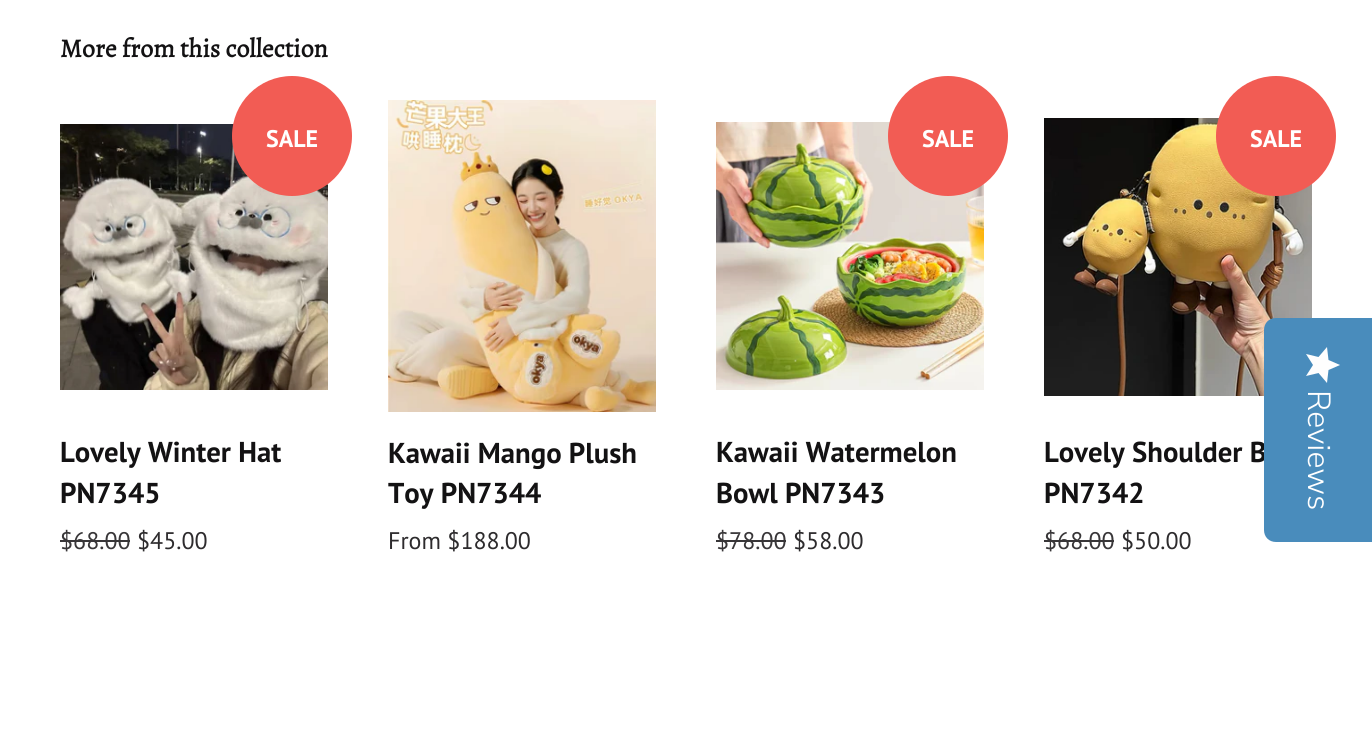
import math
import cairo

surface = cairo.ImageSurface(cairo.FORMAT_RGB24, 1372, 744)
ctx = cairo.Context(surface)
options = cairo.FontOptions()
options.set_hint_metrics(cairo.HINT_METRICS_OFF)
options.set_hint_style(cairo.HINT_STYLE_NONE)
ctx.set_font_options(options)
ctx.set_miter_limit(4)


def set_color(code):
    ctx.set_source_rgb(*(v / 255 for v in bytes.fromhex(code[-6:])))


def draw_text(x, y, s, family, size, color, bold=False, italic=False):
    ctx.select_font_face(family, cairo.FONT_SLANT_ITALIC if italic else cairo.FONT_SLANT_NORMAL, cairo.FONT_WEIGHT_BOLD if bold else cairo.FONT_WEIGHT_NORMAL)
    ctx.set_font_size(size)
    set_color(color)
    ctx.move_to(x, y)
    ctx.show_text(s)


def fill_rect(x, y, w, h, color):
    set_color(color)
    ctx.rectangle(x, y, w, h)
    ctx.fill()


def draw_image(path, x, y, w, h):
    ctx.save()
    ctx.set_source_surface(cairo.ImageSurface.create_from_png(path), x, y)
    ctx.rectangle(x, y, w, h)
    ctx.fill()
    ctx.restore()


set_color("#ffffff")
ctx.paint()
draw_text(60, 57, "More from this collection", "Alegreya", 26, "#131213", bold=True)
draw_image("assets/img1.png", 60, 124, 268, 266)
set_color("#f25c54")
ctx.arc(292, 136, 60, 0, 2 * math.pi)
ctx.fill()
draw_text(266, 147, "SALE", "PT Sans", 24, "#ffffff", bold=True)
draw_text(60, 462, "Lovely Winter Hat", "PT Sans", 28.75, "#131213", bold=True)
draw_text(60, 503, "PN7345", "PT Sans", 28.75, "#131213", bold=True)
draw_text(60, 549, "$68.00", "PT Sans", 24, "#383638")
fill_rect(60, 540, 70, 2, "#383638")
draw_text(137, 549, "$45.00", "PT Sans", 24, "#2d2b2d")
draw_image("assets/img2.png", 388, 100, 268, 312)
draw_text(388, 463, "Kawaii Mango Plush", "PT Sans", 28.75, "#131213", bold=True)
draw_text(388, 503, "Toy PN7344", "PT Sans", 28.75, "#131213", bold=True)
draw_text(388, 549, "From $188.00", "PT Sans", 24, "#2d2b2d")
draw_image("assets/img3.png", 716, 122, 268, 268)
set_color("#f25c54")
ctx.arc(948, 136, 60, 0, 2 * math.pi)
ctx.fill()
draw_text(922, 147, "SALE", "PT Sans", 24, "#ffffff", bold=True)
draw_text(716, 462, "Kawaii Watermelon", "PT Sans", 28.75, "#131213", bold=True)
draw_text(716, 503, "Bowl PN7343", "PT Sans", 28.75, "#131213", bold=True)
draw_text(716, 549, "$78.00", "PT Sans", 24, "#383638")
fill_rect(716, 540, 70, 2, "#383638")
draw_text(793, 549, "$58.00", "PT Sans", 24, "#2d2b2d")
draw_image("assets/img4.png", 1044, 118, 268, 278)
set_color("#f25c54")
ctx.arc(1276, 136, 60, 0, 2 * math.pi)
ctx.fill()
draw_text(1250, 147, "SALE", "PT Sans", 24, "#ffffff", bold=True)
draw_text(1044, 462, "Lovely Shoulder B", "PT Sans", 28.75, "#131213", bold=True)
draw_text(1044, 503, "PN7342", "PT Sans", 28.75, "#131213", bold=True)
draw_text(1044, 549, "$68.00", "PT Sans", 24, "#383638")
fill_rect(1044, 540, 70, 2, "#383638")
draw_text(1121, 549, "$50.00", "PT Sans", 24, "#2d2b2d")
set_color("#498cbc")
ctx.new_path()
ctx.move_to(1372, 318)
ctx.line_to(1372, 542)
ctx.line_to(1276, 542)
ctx.curve_to(1269, 542, 1264, 537, 1264, 530)
ctx.line_to(1264, 330)
ctx.curve_to(1264, 323, 1269, 318, 1276, 318)
ctx.close_path()
ctx.fill()
gradient = cairo.LinearGradient(1340, 347, 1340, 383)
gradient.add_color_stop_rgba(1, 0.996, 0.996, 0.996, 1)
gradient.add_color_stop_rgba(1, 0.918, 0.918, 0.918, 1)
ctx.set_source(gradient)
ctx.new_path()
ctx.move_to(1313, 365)
ctx.line_to(1306, 376)
ctx.line_to(1318.5, 373)
ctx.line_to(1327, 383)
ctx.line_to(1328.5, 370)
ctx.line_to(1340, 365)
ctx.line_to(1328.5, 360)
ctx.line_to(1327, 347)
ctx.line_to(1318.5, 357)
ctx.line_to(1306, 354)
ctx.close_path()
ctx.fill()
ctx.save()
ctx.translate(1308, 390)
ctx.rotate(90 * math.pi / 180)
draw_text(0, 0, "Reviews", "Nunito Sans Light", 32, "#ffffff")
ctx.restore()
surface.write_to_png("output.png")
